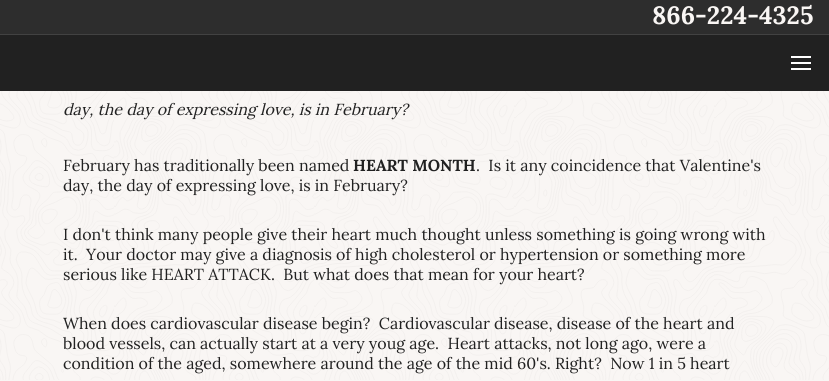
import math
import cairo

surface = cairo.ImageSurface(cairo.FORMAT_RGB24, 829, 381)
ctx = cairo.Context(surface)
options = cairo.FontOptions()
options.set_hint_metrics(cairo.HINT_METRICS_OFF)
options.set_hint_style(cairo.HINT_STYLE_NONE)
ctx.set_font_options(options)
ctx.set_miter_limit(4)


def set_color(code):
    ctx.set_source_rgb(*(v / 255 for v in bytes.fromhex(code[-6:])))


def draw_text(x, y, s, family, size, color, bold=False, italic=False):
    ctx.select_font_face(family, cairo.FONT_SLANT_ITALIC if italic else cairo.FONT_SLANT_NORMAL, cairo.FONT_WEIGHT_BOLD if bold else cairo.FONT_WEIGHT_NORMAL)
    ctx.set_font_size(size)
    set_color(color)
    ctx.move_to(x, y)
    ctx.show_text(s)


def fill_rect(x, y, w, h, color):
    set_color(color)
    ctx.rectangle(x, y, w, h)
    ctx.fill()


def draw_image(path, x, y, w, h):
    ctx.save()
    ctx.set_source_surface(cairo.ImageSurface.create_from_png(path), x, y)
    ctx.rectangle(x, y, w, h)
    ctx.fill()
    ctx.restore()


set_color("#f9f6f4")
ctx.paint()
fill_rect(0, 0, 829, 34, "#2d2d2d")
fill_rect(0, 34, 829, 1, "#424242")
draw_text(652, 24, "866-224-4325", "Lora", 25, "#f9f6f4", bold=True)
fill_rect(0, 35, 829, 56, "#212121")
fill_rect(791, 56, 20, 2, "#ffffff")
fill_rect(791, 62, 20, 2, "#ffffff")
fill_rect(791, 68, 20, 2, "#ffffff")
draw_image("assets/img1.png", 0, 91, 829, 289)
draw_text(63, 115, "day, the day of expressing love, is in February?", "Lora", 16, "#212121", italic=True)
draw_text(63, 171, "February has traditionally been named", "Lora", 16, "#212121")
draw_text(353, 171, "HEART MONTH", "Lora", 16, "#212121", bold=True)
draw_text(476, 171, ".  Is it any coincidence that Valentine's", "Lora", 16, "#212121")
draw_text(63, 191, "day, the day of expressing love, is in February?", "Lora", 16, "#212121")
draw_text(63, 240, "I don't think many people give their heart much thought unless something is going wrong with", "Lora", 16, "#212121")
draw_text(63, 260, "it.  Your doctor may give a diagnosis of high cholesterol or hypertension or something more", "Lora", 16, "#212121")
draw_text(63, 280, "serious like HEART ATTACK.  But what does that mean for your heart?", "Lora", 16, "#212121")
draw_text(63, 329, "When does cardiovascular disease begin?  Cardiovascular disease, disease of the heart and", "Lora", 16, "#212121")
draw_text(63, 349, "blood vessels, can actually start at a very youg age.  Heart attacks, not long ago, were a", "Lora", 16, "#212121")
draw_text(63, 369, "condition of the aged, somewhere around the age of the mid 60's. Right?  Now 1 in 5 heart", "Lora", 16, "#212121")
surface.write_to_png("output.png")
